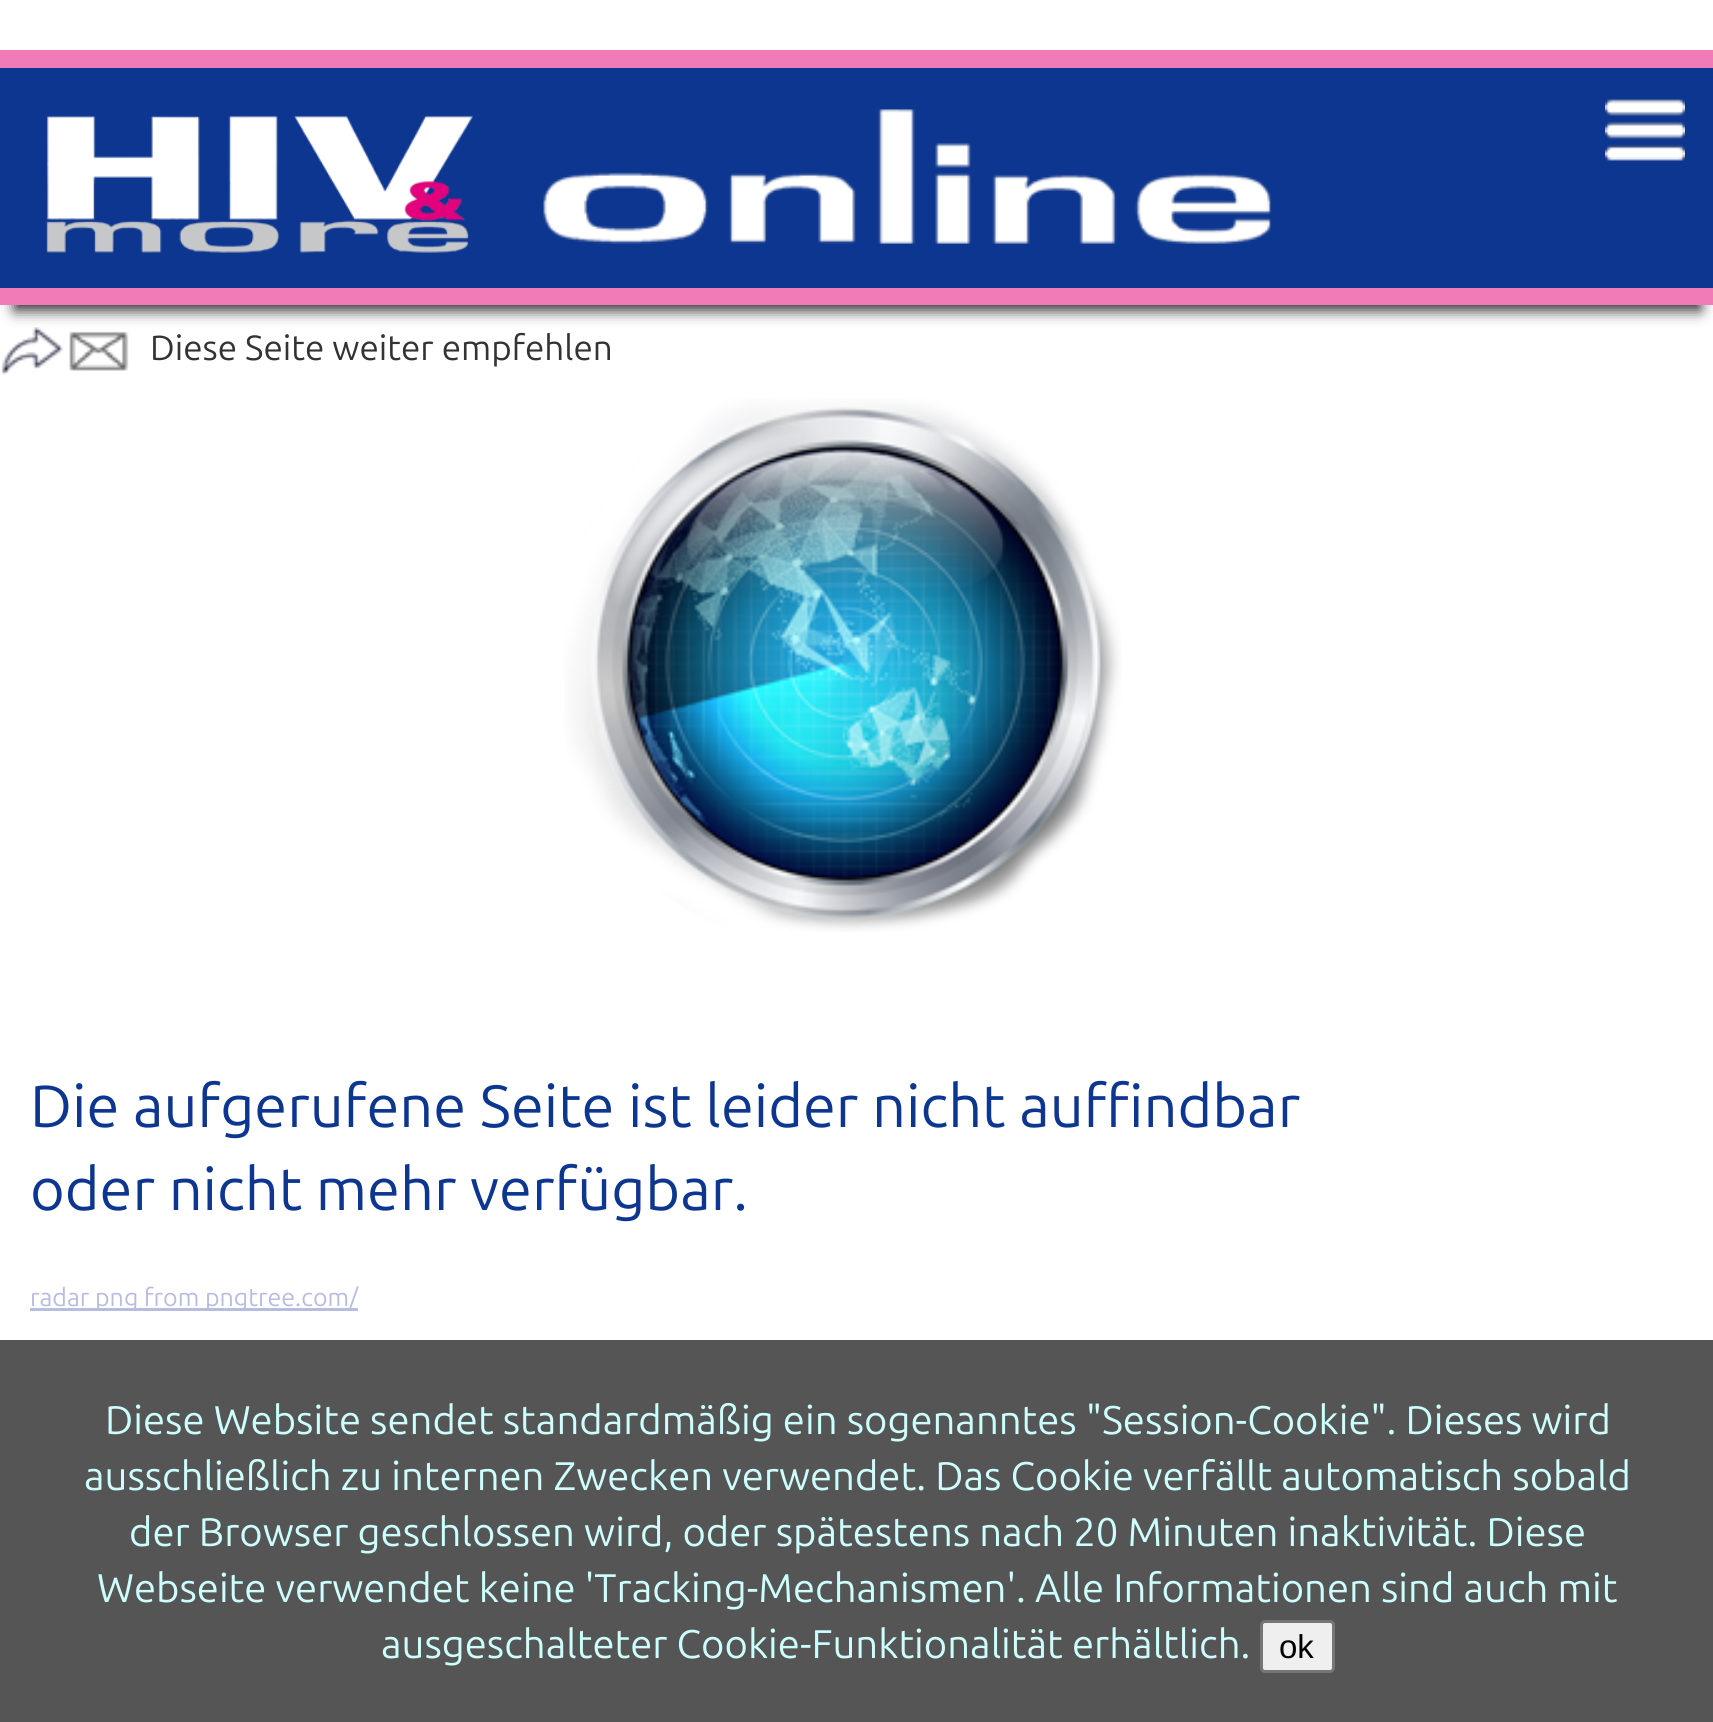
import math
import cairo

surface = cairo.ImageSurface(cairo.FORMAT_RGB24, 1713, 1722)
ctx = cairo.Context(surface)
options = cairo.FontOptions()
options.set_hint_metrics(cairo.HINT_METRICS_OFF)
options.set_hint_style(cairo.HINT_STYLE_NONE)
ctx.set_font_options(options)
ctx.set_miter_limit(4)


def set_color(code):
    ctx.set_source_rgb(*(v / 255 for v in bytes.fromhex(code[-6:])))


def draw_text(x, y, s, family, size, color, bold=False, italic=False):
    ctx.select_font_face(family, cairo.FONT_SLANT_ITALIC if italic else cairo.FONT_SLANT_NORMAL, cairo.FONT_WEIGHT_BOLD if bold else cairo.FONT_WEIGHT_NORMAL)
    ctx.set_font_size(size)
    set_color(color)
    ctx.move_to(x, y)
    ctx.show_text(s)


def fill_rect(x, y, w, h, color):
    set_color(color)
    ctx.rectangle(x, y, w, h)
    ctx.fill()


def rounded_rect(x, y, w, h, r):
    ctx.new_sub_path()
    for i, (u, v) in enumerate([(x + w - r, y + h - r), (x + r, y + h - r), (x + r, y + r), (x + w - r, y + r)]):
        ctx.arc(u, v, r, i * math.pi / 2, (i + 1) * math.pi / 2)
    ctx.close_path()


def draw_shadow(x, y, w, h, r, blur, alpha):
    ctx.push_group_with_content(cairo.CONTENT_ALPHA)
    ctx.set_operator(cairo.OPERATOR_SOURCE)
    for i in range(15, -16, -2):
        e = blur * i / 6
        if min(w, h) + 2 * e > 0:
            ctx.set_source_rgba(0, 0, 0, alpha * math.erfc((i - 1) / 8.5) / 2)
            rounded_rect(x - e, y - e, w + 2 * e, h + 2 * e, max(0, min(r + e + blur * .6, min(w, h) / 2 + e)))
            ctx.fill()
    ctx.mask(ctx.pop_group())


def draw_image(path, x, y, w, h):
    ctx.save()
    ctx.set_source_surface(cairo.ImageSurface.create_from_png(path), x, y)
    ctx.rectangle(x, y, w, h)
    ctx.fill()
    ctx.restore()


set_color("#ffffff")
ctx.paint()
set_color("#222222")
draw_shadow(15, 85, 1685, 225, 0, 7.5, 1)
fill_rect(0, 68, 1713, 220, "#0d3690")
fill_rect(0, 50, 1713, 18, "#f17bb7")
fill_rect(0, 288, 1713, 17, "#f17bb7")
draw_image("assets/img1.png", 46, 115, 427, 138)
draw_image("assets/img2.png", 543, 109, 728, 135)
draw_image("assets/img3.png", 1605, 99, 80, 62)
draw_image("assets/img4.png", 1, 327, 128, 48)
draw_text(150, 360, "Diese Seite weiter empfehlen", "Ubuntu", 35, "#333333")
draw_image("assets/img5.png", 564, 398, 558, 534)
draw_text(30, 1127, "Die aufgerufene Seite ist leider nicht auffindbar", "Ubuntu", 59.5, "#0d3690")
draw_text(30, 1210, "oder nicht mehr verfügbar.", "Ubuntu", 59.5, "#0d3690")
fill_rect(30, 1308, 328, 3, "#b8bcdf")
draw_text(30, 1306, "radar png from pngtree.com/", "Ubuntu", 25, "#b8bcdf")
fill_rect(0, 1340, 1713, 382, "#555555")
draw_text(105, 1434, "Diese Website sendet standardmäßig ein sogenanntes \"Session-Cookie\". Dieses wird", "Ubuntu", 40, "#ccfffd")
draw_text(84, 1490, "ausschließlich zu internen Zwecken verwendet. Das Cookie verfällt automatisch sobald", "Ubuntu", 40, "#ccfffd")
draw_text(129, 1546, "der Browser geschlossen wird, oder spätestens nach 20 Minuten inaktivität. Diese", "Ubuntu", 40, "#ccfffd")
draw_text(97, 1602, "Webseite verwendet keine 'Tracking-Mechanismen'. Alle Informationen sind auch mit", "Ubuntu", 40, "#ccfffd")
draw_text(381, 1658, "ausgeschalteter Cookie-Funktionalität erhältlich.", "Ubuntu", 40, "#ccfffd")
set_color("#efefef")
rounded_rect(1261.5, 1621.5, 72, 50, 3.5)
ctx.fill_preserve()
set_color("#767676")
ctx.set_line_width(3)
ctx.stroke()
draw_text(1279, 1658, "ok", "Liberation Sans", 33, "#000000")
surface.write_to_png("output.png")
